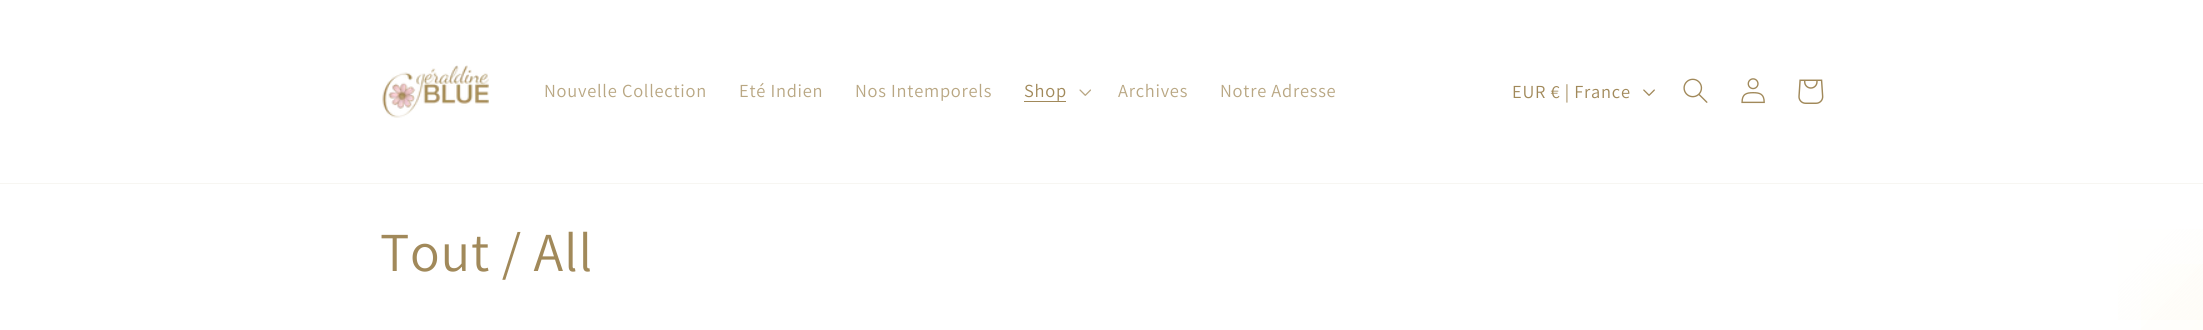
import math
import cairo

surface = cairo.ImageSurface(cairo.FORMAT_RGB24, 2203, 330)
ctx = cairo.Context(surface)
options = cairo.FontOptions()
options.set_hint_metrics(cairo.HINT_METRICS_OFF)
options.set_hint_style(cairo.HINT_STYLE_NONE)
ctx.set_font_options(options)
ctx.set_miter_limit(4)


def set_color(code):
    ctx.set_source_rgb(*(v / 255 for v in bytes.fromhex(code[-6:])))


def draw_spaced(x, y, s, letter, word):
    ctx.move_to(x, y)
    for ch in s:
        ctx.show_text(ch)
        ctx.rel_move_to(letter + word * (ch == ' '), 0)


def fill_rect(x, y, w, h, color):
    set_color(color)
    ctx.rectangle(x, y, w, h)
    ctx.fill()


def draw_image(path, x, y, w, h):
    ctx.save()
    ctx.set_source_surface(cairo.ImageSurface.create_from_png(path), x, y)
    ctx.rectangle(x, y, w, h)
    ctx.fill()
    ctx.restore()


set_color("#ffffff")
ctx.paint()
gradient = cairo.LinearGradient(430, -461, 1774, 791)
gradient.add_color_stop_rgba(0.95, 1, 1, 1, 1)
gradient.add_color_stop_rgba(1, 1, 0.996, 0.98, 1)
ctx.set_source(gradient)
ctx.rectangle(2141, 264, 62, 66)
ctx.fill()
fill_rect(0, 183, 2203, 1, "#f7f6f2")
draw_image("assets/img1.png", 382, 65, 107, 53)
ctx.select_font_face("Assistant")
ctx.set_font_size(18.4)
set_color("#b9a783")
draw_spaced(544, 97, "Nouvelle Collection", 0.75, 0)
draw_spaced(739, 97, "Eté Indien", 0.75, 0)
draw_spaced(855, 97, "Nos Intemporels", 0.75, 0)
set_color("#a1895a")
draw_spaced(1024, 97, "Shop", 0.75, 0)
fill_rect(1024, 101, 42, 1, "#a1895a")
draw_image("assets/img2.png", 1079, 89, 12, 7)
set_color("#b9a783")
draw_spaced(1118, 97, "Archives", 0.75, 0)
draw_spaced(1220, 97, "Notre Adresse", 0.75, 0)
set_color("#a1895a")
draw_spaced(1512, 98, "EUR € | France", 0.75, 0)
draw_image("assets/img3.png", 1643, 89, 12, 7)
draw_image("assets/img4.png", 1683, 78, 25, 25)
draw_image("assets/img5.png", 1741, 78, 24, 26)
draw_image("assets/img6.png", 1798, 79, 26, 25)
gradient = cairo.LinearGradient(430, -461, 1774, 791)
gradient.add_color_stop_rgba(0.95, 0.976, 0.957, 0.89, 0.04)
gradient.add_color_stop_rgba(1, 0.976, 0.957, 0.89, 0.19)
ctx.set_source(gradient)
ctx.rectangle(2118, 229, 85, 91)
ctx.fill()
ctx.set_font_size(55)
set_color("#a1895a")
draw_spaced(380, 271, "Tout / All", 0.75, 0)
surface.write_to_png("output.png")
